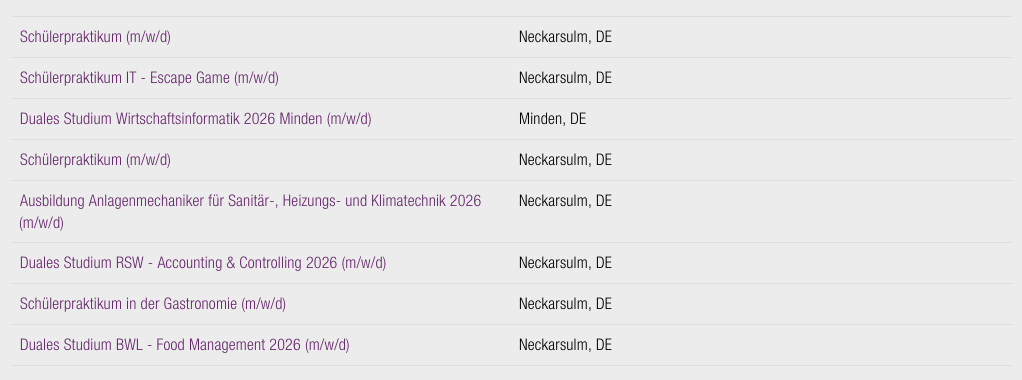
import math
import cairo

surface = cairo.ImageSurface(cairo.FORMAT_RGB24, 1022, 380)
ctx = cairo.Context(surface)
options = cairo.FontOptions()
options.set_hint_metrics(cairo.HINT_METRICS_OFF)
options.set_hint_style(cairo.HINT_STYLE_NONE)
ctx.set_font_options(options)
ctx.set_miter_limit(4)


def set_color(code):
    ctx.set_source_rgb(*(v / 255 for v in bytes.fromhex(code[-6:])))


def draw_spaced(x, y, s, letter, word):
    ctx.move_to(x, y)
    for ch in s:
        ctx.show_text(ch)
        ctx.rel_move_to(letter + word * (ch == ' '), 0)


def fill_rect(x, y, w, h, color):
    set_color(color)
    ctx.rectangle(x, y, w, h)
    ctx.fill()


set_color("#ececed")
ctx.paint()
ctx.select_font_face("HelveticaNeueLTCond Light")
ctx.set_font_size(16)
set_color("#65256a")
draw_spaced(20, 42, "Schülerpraktikum (m/w/d)", 0.2, 0)
fill_rect(11, 16, 1001, 1, "#dddddd")
set_color("#000000")
draw_spaced(519, 42, "Neckarsulm, DE", 0.2, 0)
set_color("#65256a")
draw_spaced(20, 83, "Schülerpraktikum IT - Escape Game (m/w/d)", 0.2, 0)
fill_rect(11, 57, 1001, 1, "#dddddd")
set_color("#000000")
draw_spaced(519, 83, "Neckarsulm, DE", 0.2, 0)
set_color("#65256a")
draw_spaced(20, 124, "Duales Studium Wirtschaftsinformatik 2026 Minden (m/w/d)", 0.2, 0)
fill_rect(11, 98, 1001, 1, "#dddddd")
set_color("#000000")
draw_spaced(519, 124, "Minden, DE", 0.2, 0)
set_color("#65256a")
draw_spaced(20, 165, "Schülerpraktikum (m/w/d)", 0.2, 0)
fill_rect(11, 139, 1001, 1, "#dddddd")
set_color("#000000")
draw_spaced(519, 165, "Neckarsulm, DE", 0.2, 0)
set_color("#65256a")
draw_spaced(20, 206, "Ausbildung Anlagenmechaniker für Sanitär-, Heizungs- und Klimatechnik 2026", 0.2, 0)
draw_spaced(19, 228, "(m/w/d)", 0.2, 0)
fill_rect(11, 180, 1001, 1, "#dddddd")
set_color("#000000")
draw_spaced(519, 206, "Neckarsulm, DE", 0.2, 0)
set_color("#65256a")
draw_spaced(20, 268, "Duales Studium RSW - Accounting & Controlling 2026 (m/w/d)", 0.2, 0)
fill_rect(11, 242, 1001, 1, "#dddddd")
set_color("#000000")
draw_spaced(519, 268, "Neckarsulm, DE", 0.2, 0)
set_color("#65256a")
draw_spaced(20, 309, "Schülerpraktikum in der Gastronomie (m/w/d)", 0.2, 0)
fill_rect(11, 283, 1001, 1, "#dddddd")
set_color("#000000")
draw_spaced(519, 309, "Neckarsulm, DE", 0.2, 0)
set_color("#65256a")
draw_spaced(20, 350, "Duales Studium BWL - Food Management 2026 (m/w/d)", 0.2, 0)
fill_rect(11, 324, 1001, 1, "#dddddd")
set_color("#000000")
draw_spaced(519, 350, "Neckarsulm, DE", 0.2, 0)
fill_rect(11, 365, 1001, 1, "#dddddd")
surface.write_to_png("output.png")
